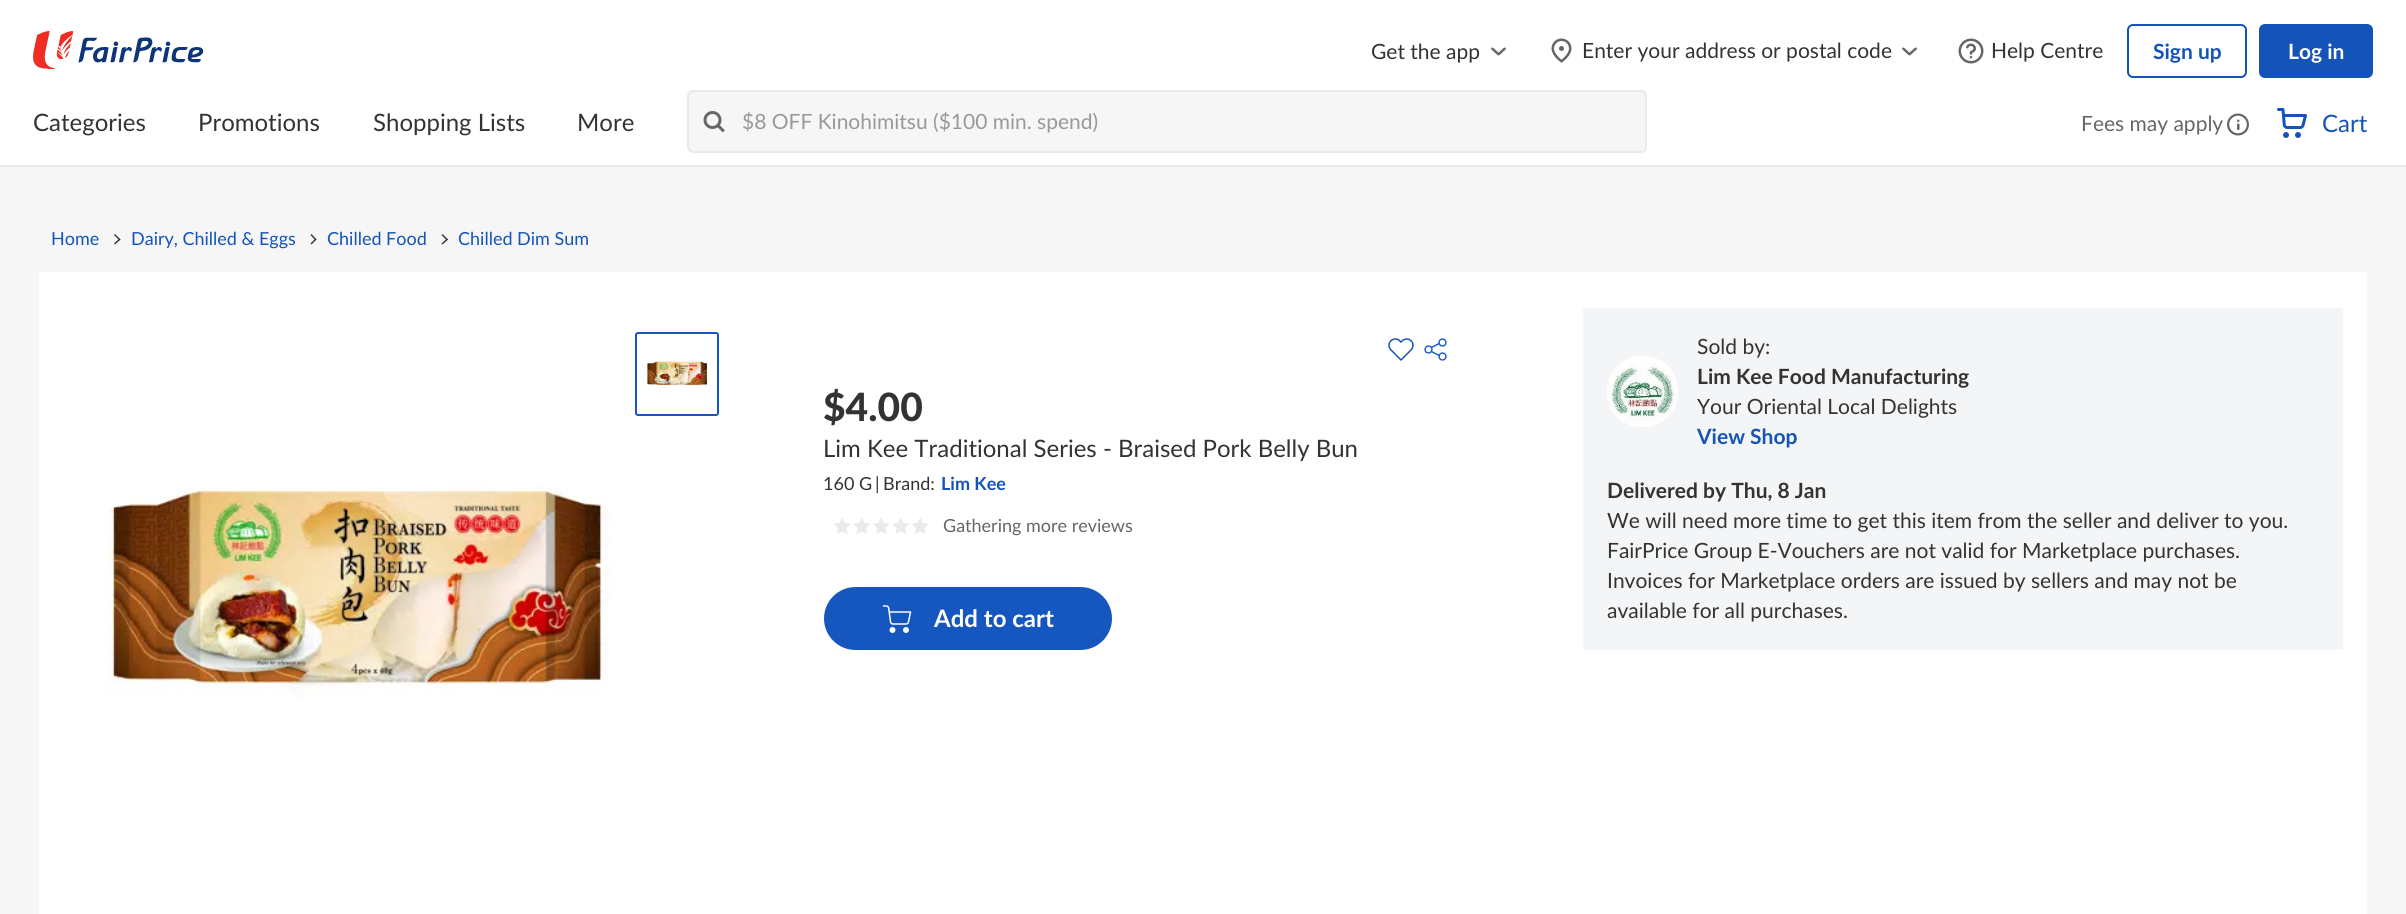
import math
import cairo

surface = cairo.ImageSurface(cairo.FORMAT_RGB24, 2406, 914)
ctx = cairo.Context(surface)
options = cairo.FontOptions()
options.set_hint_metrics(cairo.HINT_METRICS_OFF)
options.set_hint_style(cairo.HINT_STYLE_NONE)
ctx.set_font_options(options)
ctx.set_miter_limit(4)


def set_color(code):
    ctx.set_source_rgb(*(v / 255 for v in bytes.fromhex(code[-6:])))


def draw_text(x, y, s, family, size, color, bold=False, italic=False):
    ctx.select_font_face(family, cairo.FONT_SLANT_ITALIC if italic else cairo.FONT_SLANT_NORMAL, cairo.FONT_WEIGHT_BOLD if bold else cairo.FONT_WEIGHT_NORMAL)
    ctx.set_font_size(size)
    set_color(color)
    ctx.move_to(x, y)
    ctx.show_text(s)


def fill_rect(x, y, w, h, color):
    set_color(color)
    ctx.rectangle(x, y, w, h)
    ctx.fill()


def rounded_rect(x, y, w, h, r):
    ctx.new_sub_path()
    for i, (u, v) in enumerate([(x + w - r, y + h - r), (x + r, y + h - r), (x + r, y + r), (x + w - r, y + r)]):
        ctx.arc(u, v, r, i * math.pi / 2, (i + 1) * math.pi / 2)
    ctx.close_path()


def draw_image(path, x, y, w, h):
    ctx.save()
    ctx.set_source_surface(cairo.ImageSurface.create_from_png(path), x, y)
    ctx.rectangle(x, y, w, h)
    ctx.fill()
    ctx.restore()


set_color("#f6f6f6")
ctx.paint()
fill_rect(0, 0, 2406, 165, "#ffffff")
fill_rect(0, 165, 2406, 2, "#eaeaea")
draw_image("assets/img1.png", 33, 31, 171, 38)
draw_text(1371, 59, "Get the app", "Lato", 21, "#333333")
draw_image("assets/img2.png", 1491, 47, 15, 9)
draw_image("assets/img3.png", 1551, 38, 21, 25)
draw_text(1582, 58, "Enter your address or postal code", "Lato", 21, "#333333")
draw_image("assets/img2.png", 1902, 47, 15, 9)
draw_image("assets/img4.png", 1958, 38, 26, 26)
draw_text(1991, 58, "Help Centre", "Lato", 21, "#333333")
rounded_rect(2128, 25, 118, 52, 5)
set_color("#1454b8")
ctx.stroke()
draw_text(2153, 59, "Sign up", "Lato", 21, "#1454b8", bold=True)
rounded_rect(2259, 24, 114, 54, 6)
ctx.fill()
draw_text(2288, 59, "Log in", "Lato", 21, "#ffffff", bold=True)
draw_text(33, 131, "Categories", "Lato", 24, "#333333")
draw_text(198, 131, "Promotions", "Lato", 24, "#333333")
draw_text(373, 131, "Shopping Lists", "Lato", 24, "#333333")
draw_text(577, 131, "More", "Lato", 24, "#333333")
set_color("#f6f6f6")
rounded_rect(688, 91, 958, 61, 5)
ctx.fill_preserve()
set_color("#eaeaea")
ctx.stroke()
ctx.arc(712.5, 120, 7.5, 0, 2 * math.pi)
set_color("#666666")
ctx.set_line_width(3)
ctx.stroke()
ctx.new_path()
ctx.move_to(723, 130.5)
ctx.line_to(718.5, 126)
ctx.set_line_cap(cairo.LINE_CAP_ROUND)
ctx.set_line_join(cairo.LINE_JOIN_ROUND)
ctx.stroke()
draw_text(742, 129, "$8 OFF Kinohimitsu ($100 min. spend)", "Lato", 21, "#999999")
draw_text(2081, 131, "Fees may apply", "Lato", 21, "#666666")
draw_image("assets/img5.png", 2227, 113, 22, 23)
draw_image("assets/img6.png", 2277, 108, 30, 30)
draw_text(2322, 132, "Cart", "Lato", 24, "#1454b8")
draw_text(51, 245, "Home", "Lato", 18, "#1454b8")
set_color("#333333")
ctx.new_path()
ctx.move_to(114, 235)
ctx.line_to(115, 234)
ctx.line_to(120.5, 239.5)
ctx.line_to(119.5, 240.5)
ctx.close_path()
ctx.fill()
ctx.new_path()
ctx.move_to(114, 243.5)
ctx.line_to(119.5, 238.5)
ctx.line_to(120.5, 239.5)
ctx.line_to(115, 244.5)
ctx.close_path()
ctx.fill()
draw_text(131, 245, "Dairy, Chilled & Eggs", "Lato", 18, "#1454b8")
set_color("#333333")
ctx.new_path()
ctx.move_to(310.5, 235)
ctx.line_to(311.5, 234)
ctx.line_to(316.5, 239.5)
ctx.line_to(315.5, 240.5)
ctx.close_path()
ctx.fill()
ctx.new_path()
ctx.move_to(310.5, 243.5)
ctx.line_to(315.5, 238.5)
ctx.line_to(316.5, 239.5)
ctx.line_to(311.5, 244.5)
ctx.close_path()
ctx.fill()
draw_text(327, 245, "Chilled Food", "Lato", 18, "#1454b8")
set_color("#333333")
ctx.new_path()
ctx.move_to(441.5, 235)
ctx.line_to(442.5, 234)
ctx.line_to(448, 239.5)
ctx.line_to(447, 240.5)
ctx.close_path()
ctx.fill()
ctx.new_path()
ctx.move_to(441.5, 243.5)
ctx.line_to(447, 238.5)
ctx.line_to(448, 239.5)
ctx.line_to(442.5, 244.5)
ctx.close_path()
ctx.fill()
draw_text(458, 245, "Chilled Dim Sum", "Lato", 18, "#1454b8")
fill_rect(39, 272, 2328, 642, "#ffffff")
rounded_rect(636, 333, 82, 82, 2)
set_color("#1557bf")
ctx.set_line_width(2)
ctx.set_line_cap(cairo.LINE_CAP_BUTT)
ctx.set_line_join(cairo.LINE_JOIN_MITER)
ctx.stroke()
draw_image("assets/img7.png", 646, 361, 62, 25)
draw_image("assets/img8.png", 105, 486, 506, 212)
draw_image("assets/img9.png", 1388, 338, 26, 23)
draw_image("assets/img10.png", 1424, 338, 23, 23)
draw_text(823, 421, "$4.00", "Lato Black", 39, "#333333")
draw_text(823, 457, "Lim Kee Traditional Series - Braised Pork Belly Bun", "Lato", 24, "#333333")
draw_text(823, 490, "160 G", "Lato", 18, "#333333")
draw_text(875, 490, "|", "Lato", 18, "#333333")
draw_text(883, 490, "Brand:", "Lato", 18, "#333333")
draw_text(941, 490, "Lim Kee", "Lato", 18, "#1454b8", bold=True)
draw_image("assets/img11.png", 834, 518, 16, 16)
draw_image("assets/img12.png", 854, 518, 16, 16)
draw_image("assets/img11.png", 873, 518, 16, 16)
draw_image("assets/img12.png", 893, 518, 16, 16)
draw_image("assets/img11.png", 912, 518, 16, 16)
draw_text(943, 532, "Gathering more reviews", "Lato", 18, "#666666")
set_color("#1557bf")
rounded_rect(824, 587, 288, 63, 31.5)
ctx.fill()
draw_image("assets/img13.png", 882, 605, 30, 28)
draw_text(934, 627, "Add to cart", "Lato", 24, "#ffffff", bold=True)
fill_rect(1583, 308, 760, 342, "#f3f5f7")
draw_image("assets/img14.png", 1607, 356, 71, 71)
draw_text(1697, 354, "Sold by:", "Lato", 21, "#333333")
draw_text(1697, 384, "Lim Kee Food Manufacturing", "Lato", 21, "#333333", bold=True)
draw_text(1697, 414, "Your Oriental Local Delights", "Lato", 21, "#333333")
draw_text(1697, 444, "View Shop", "Lato", 21, "#1454b8", bold=True)
draw_text(1607, 498, "Delivered by Thu, 8 Jan", "Lato", 21, "#333333", bold=True)
draw_text(1607, 528, "We will need more time to get this item from the seller and deliver to you.", "Lato", 21, "#333333")
draw_text(1607, 558, "FairPrice Group E-Vouchers are not valid for Marketplace purchases.", "Lato", 21, "#333333")
draw_text(1607, 588, "Invoices for Marketplace orders are issued by sellers and may not be", "Lato", 21, "#333333")
draw_text(1607, 618, "available for all purchases.", "Lato", 21, "#333333")
surface.write_to_png("output.png")
